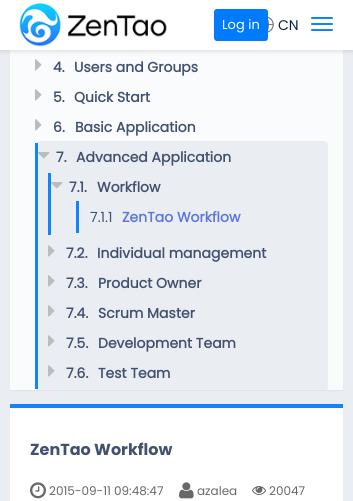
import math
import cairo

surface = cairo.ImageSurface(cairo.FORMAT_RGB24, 353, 501)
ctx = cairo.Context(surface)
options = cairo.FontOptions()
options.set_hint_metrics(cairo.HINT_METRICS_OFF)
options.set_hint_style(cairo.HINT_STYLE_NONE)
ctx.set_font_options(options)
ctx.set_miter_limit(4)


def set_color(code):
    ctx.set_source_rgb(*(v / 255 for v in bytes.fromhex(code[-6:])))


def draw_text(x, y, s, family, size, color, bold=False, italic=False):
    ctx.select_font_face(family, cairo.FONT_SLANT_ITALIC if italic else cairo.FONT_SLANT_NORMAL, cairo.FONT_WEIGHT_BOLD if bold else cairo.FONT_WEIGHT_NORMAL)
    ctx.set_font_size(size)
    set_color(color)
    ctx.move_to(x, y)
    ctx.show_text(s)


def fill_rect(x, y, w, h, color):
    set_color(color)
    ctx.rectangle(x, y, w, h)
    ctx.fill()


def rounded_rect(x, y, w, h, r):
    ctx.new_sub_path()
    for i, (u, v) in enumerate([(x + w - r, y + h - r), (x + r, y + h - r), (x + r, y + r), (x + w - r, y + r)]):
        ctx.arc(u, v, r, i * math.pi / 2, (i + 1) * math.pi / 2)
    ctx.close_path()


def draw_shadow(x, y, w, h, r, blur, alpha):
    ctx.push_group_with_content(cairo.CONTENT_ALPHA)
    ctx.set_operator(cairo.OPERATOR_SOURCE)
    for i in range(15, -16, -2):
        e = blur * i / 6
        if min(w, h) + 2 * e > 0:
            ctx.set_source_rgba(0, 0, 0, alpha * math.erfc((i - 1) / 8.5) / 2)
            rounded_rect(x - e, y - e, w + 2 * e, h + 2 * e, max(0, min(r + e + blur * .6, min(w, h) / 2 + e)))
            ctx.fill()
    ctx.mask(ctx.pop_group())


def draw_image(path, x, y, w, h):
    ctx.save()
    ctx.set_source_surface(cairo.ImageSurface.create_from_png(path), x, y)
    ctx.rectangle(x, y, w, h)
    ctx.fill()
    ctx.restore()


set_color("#eaeef3")
ctx.paint()
set_color("#000000")
draw_shadow(10, -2, 333, 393, 0, 0.5, 0.05)
fill_rect(10, 50, 333, 340, "#fafbfc")
set_color("#000000")
draw_shadow(0, 2, 353, 50, 0, 2, 0.1)
fill_rect(0, 0, 353, 50, "#ffffff")
draw_image("assets/img1.png", 19, 2, 148, 45)
set_color("#007aff")
rounded_rect(214, 9, 54, 32, 3)
ctx.fill()
draw_text(222, 29, "Log in", "Poppins", 13, "#ffffff")
draw_image("assets/img2.png", 268, 16, 6, 17)
draw_text(278, 30, "CN", "Poppins", 14, "#0c2243")
set_color("#1183fb")
rounded_rect(311, 17, 22, 2, 1)
ctx.fill()
rounded_rect(311, 23, 22, 2, 1)
ctx.fill()
rounded_rect(311, 29, 22, 2, 1)
ctx.fill()
draw_image("assets/img3.png", 35, 59, 7, 12)
draw_text(53, 72, "4.", "Poppins", 14, "#42526e", bold=True)
draw_text(74, 72, "Users and Groups", "Poppins", 14, "#42526e", bold=True)
draw_image("assets/img3.png", 35, 89, 7, 12)
draw_text(53, 102, "5.", "Poppins", 14, "#42526e", bold=True)
draw_text(74, 102, "Quick Start", "Poppins", 14, "#42526e", bold=True)
draw_image("assets/img3.png", 35, 119, 7, 12)
draw_text(53, 132, "6.", "Poppins", 14, "#42526e", bold=True)
draw_text(75, 132, "Basic Application", "Poppins", 14, "#42526e", bold=True)
ctx.save()
ctx.rectangle(10, 0, 333, 390)
ctx.clip()
set_color("#eaeef3")
rounded_rect(35, 141, 293, 250, 4)
ctx.fill()
ctx.restore()
fill_rect(35, 143, 3, 246, "#1183fb")
draw_image("assets/img4.png", 38, 152, 12, 7)
draw_text(56, 162, "7.", "Poppins", 14, "#42526e", bold=True)
draw_text(76, 162, "Advanced Application", "Poppins", 14, "#42526e", bold=True)
fill_rect(48, 173, 3, 62, "#1183fb")
draw_image("assets/img4.png", 51, 182, 12, 7)
draw_text(69, 192, "7.1.", "Poppins", 14, "#42526e", bold=True)
draw_text(97, 192, "Workflow", "Poppins", 14, "#42526e", bold=True)
fill_rect(76, 201, 3, 32, "#1183fb")
draw_text(90, 222, "7.1.1", "Poppins", 14, "#42526e")
draw_text(122, 222, "ZenTao Workflow", "Poppins", 14, "#5c76df", bold=True)
draw_image("assets/img5.png", 48, 245, 7, 12)
draw_text(66, 258, "7.2.", "Poppins", 14, "#42526e", bold=True)
draw_text(97, 258, "Individual management", "Poppins", 14, "#42526e", bold=True)
draw_image("assets/img5.png", 48, 275, 7, 12)
draw_text(66, 288, "7.3.", "Poppins", 14, "#42526e", bold=True)
draw_text(98, 288, "Product Owner", "Poppins", 14, "#42526e", bold=True)
draw_image("assets/img5.png", 48, 305, 7, 12)
draw_text(66, 318, "7.4.", "Poppins", 14, "#42526e", bold=True)
draw_text(98, 318, "Scrum Master", "Poppins", 14, "#42526e", bold=True)
draw_image("assets/img5.png", 48, 335, 7, 12)
draw_text(66, 348, "7.5.", "Poppins", 14, "#42526e", bold=True)
draw_text(98, 348, "Development Team", "Poppins", 14, "#42526e", bold=True)
draw_image("assets/img5.png", 48, 365, 7, 12)
draw_text(66, 378, "7.6.", "Poppins", 14, "#42526e", bold=True)
draw_text(98, 378, "Test Team", "Poppins", 14, "#42526e", bold=True)
fill_rect(10, 408, 333, 93, "#ffffff")
fill_rect(10, 404, 333, 4, "#1183fb")
draw_text(30, 455, "ZenTao Workflow", "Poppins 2", 16, "#42526e", bold=True)
draw_image("assets/img6.png", 30, 482, 16, 17)
draw_text(49, 495, "2015-09-11 09:48:47", "Poppins", 12, "#686868")
draw_image("assets/img7.png", 179, 482, 15, 17)
draw_text(197, 495, "azalea", "Poppins", 12, "#686868")
draw_image("assets/img8.png", 252, 486, 14, 9)
draw_text(269, 495, "20047", "Poppins", 12, "#686868")
surface.write_to_png("output.png")
